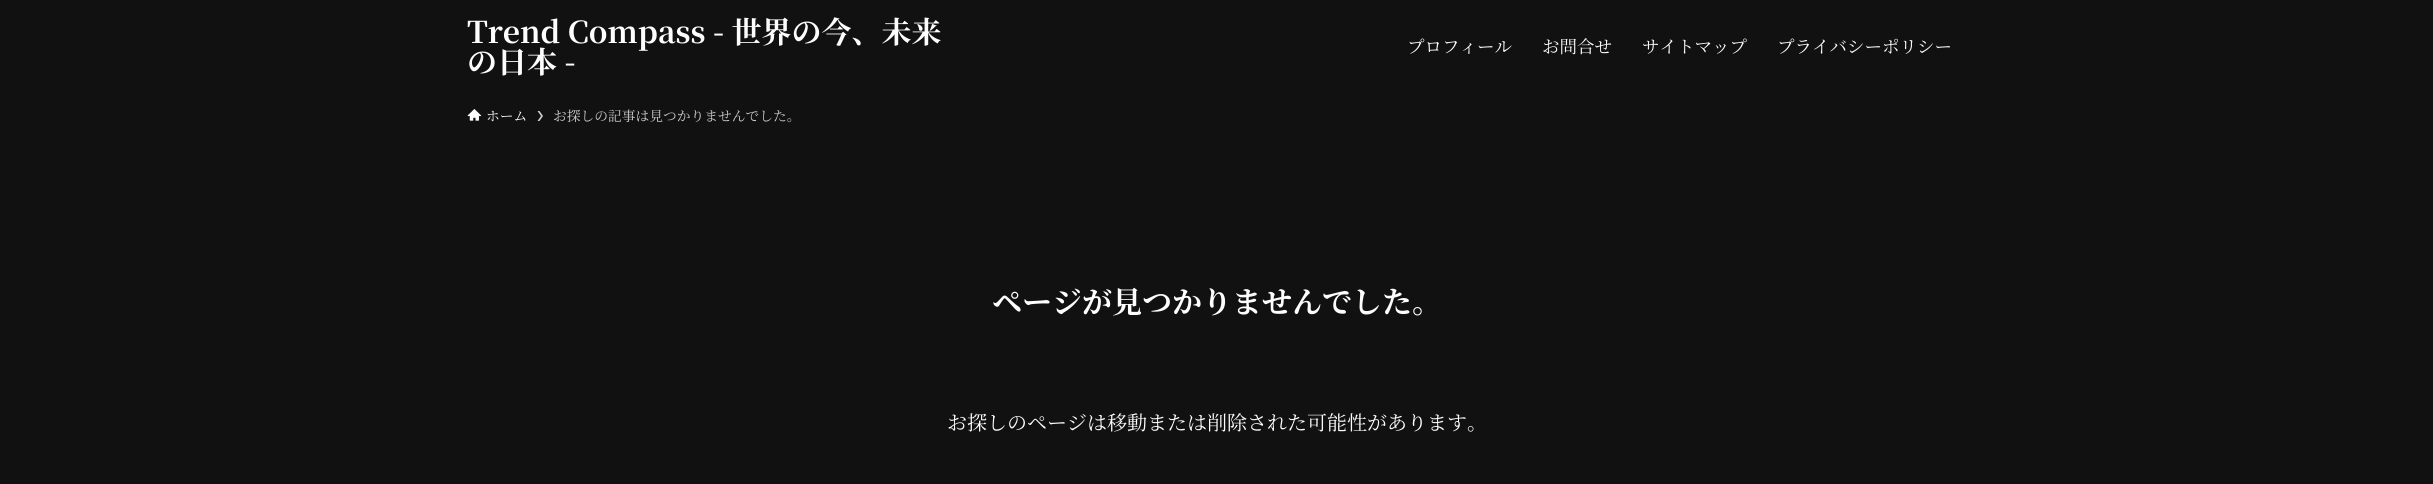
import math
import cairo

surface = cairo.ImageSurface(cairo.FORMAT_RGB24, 2433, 484)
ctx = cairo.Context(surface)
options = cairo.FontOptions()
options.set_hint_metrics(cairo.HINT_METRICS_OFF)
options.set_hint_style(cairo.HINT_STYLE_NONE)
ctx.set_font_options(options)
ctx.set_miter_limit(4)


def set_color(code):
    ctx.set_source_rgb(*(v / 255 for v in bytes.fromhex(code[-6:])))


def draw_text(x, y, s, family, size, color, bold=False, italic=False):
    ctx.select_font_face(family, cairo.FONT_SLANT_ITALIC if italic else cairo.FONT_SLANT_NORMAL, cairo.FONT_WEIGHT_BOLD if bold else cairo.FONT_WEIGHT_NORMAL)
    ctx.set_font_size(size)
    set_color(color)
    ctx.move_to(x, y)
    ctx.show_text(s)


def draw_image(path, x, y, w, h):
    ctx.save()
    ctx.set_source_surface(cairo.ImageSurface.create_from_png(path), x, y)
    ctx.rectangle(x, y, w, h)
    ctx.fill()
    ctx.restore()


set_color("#111111")
ctx.paint()
draw_text(467, 43, "Trend Compass - 世界の今、未来", "Noto Serif JP", 30, "#fdfdfd", bold=True)
draw_text(467, 73, "の日本 -", "Noto Serif JP", 30, "#fdfdfd", bold=True)
draw_text(1407, 53, "プロフィール", "Noto Serif JP", 17.5, "#fdfdfd")
draw_text(1542, 53, "お問合せ", "Noto Serif JP", 17.5, "#fdfdfd")
draw_text(1642, 53, "サイトマップ", "Noto Serif JP", 17.5, "#fdfdfd")
draw_text(1777, 53, "プライバシーポリシー", "Noto Serif JP", 17.5, "#fdfdfd")
draw_image("assets/img1.png", 467, 109, 15, 12)
draw_text(486, 121, "ホーム", "Noto Serif JP", 13.75, "#fdfdfd")
set_color("#cecece")
ctx.new_path()
ctx.move_to(539.5, 111)
ctx.line_to(537.5, 111)
ctx.line_to(541, 116)
ctx.line_to(537.5, 121)
ctx.line_to(539.5, 121)
ctx.line_to(543, 116)
ctx.close_path()
ctx.fill()
draw_text(553, 121, "お探しの記事は見つかりませんでした。", "Noto Serif JP", 13.75, "#cecece")
draw_text(992, 313, "ページが見つかりませんでした。", "Noto Serif JP", 30, "#fdfdfd", bold=True)
draw_text(947, 430, "お探しのページは移動または削除された可能性があります。", "Noto Serif JP", 20, "#fdfdfd")
surface.write_to_png("output.png")
